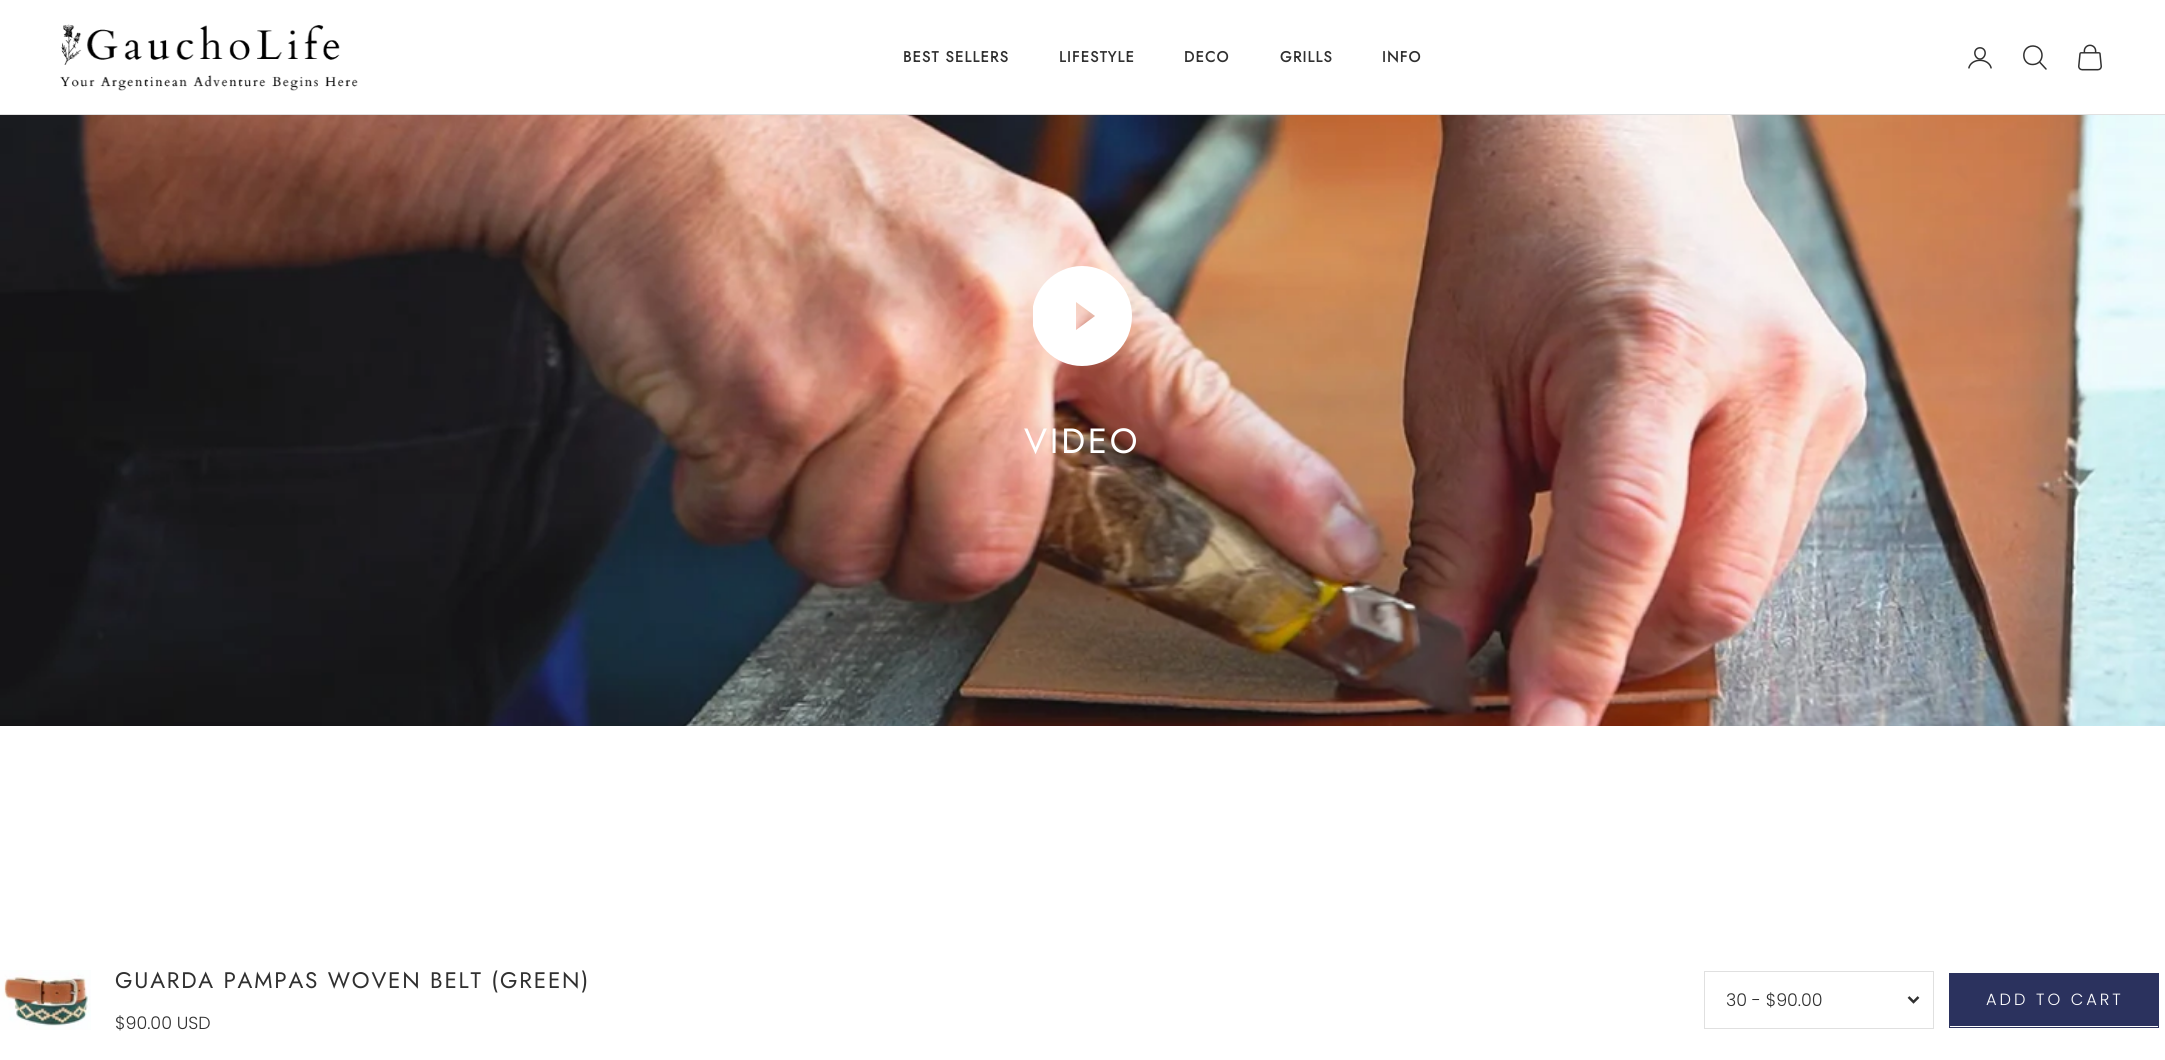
import math
import cairo

surface = cairo.ImageSurface(cairo.FORMAT_RGB24, 2165, 1060)
ctx = cairo.Context(surface)
options = cairo.FontOptions()
options.set_hint_metrics(cairo.HINT_METRICS_OFF)
options.set_hint_style(cairo.HINT_STYLE_NONE)
ctx.set_font_options(options)
ctx.set_miter_limit(4)


def set_color(code):
    ctx.set_source_rgb(*(v / 255 for v in bytes.fromhex(code[-6:])))


def draw_text(x, y, s, family, size, color, bold=False, italic=False):
    ctx.select_font_face(family, cairo.FONT_SLANT_ITALIC if italic else cairo.FONT_SLANT_NORMAL, cairo.FONT_WEIGHT_BOLD if bold else cairo.FONT_WEIGHT_NORMAL)
    ctx.set_font_size(size)
    set_color(color)
    ctx.move_to(x, y)
    ctx.show_text(s)


def draw_spaced(x, y, s, letter, word):
    ctx.move_to(x, y)
    for ch in s:
        ctx.show_text(ch)
        ctx.rel_move_to(letter + word * (ch == ' '), 0)


def fill_rect(x, y, w, h, color):
    set_color(color)
    ctx.rectangle(x, y, w, h)
    ctx.fill()


def draw_image(path, x, y, w, h):
    ctx.save()
    ctx.set_source_surface(cairo.ImageSurface.create_from_png(path), x, y)
    ctx.rectangle(x, y, w, h)
    ctx.fill()
    ctx.restore()


set_color("#ffffff")
ctx.paint()
fill_rect(0, 114, 2165, 1, "#e0e0e0")
draw_image("assets/img1.png", 60, 24, 298, 67)
ctx.select_font_face("Jost", cairo.FONT_SLANT_NORMAL, cairo.FONT_WEIGHT_BOLD)
ctx.set_font_size(15)
set_color("#303030")
draw_spaced(903, 62, "BEST SELLERS", 1.25, 0)
draw_spaced(1059, 62, "LIFESTYLE", 1.25, 0)
draw_spaced(1184, 62, "DECO", 1.25, 0)
draw_spaced(1280, 62, "GRILLS", 1.25, 0)
draw_spaced(1382, 62, "INFO", 1.25, 0)
draw_image("assets/img2.png", 1968, 47, 24, 22)
ctx.new_path()
ctx.move_to(2033, 46)
ctx.curve_to(2020.5, 46, 2021, 65, 2033, 64.5)
ctx.curve_to(2045, 64, 2045, 46.5, 2033, 46)
ctx.close_path()
ctx.set_line_width(1.5)
ctx.stroke()
ctx.new_path()
ctx.move_to(2040, 62.5)
ctx.line_to(2046, 69)
ctx.set_line_cap(cairo.LINE_CAP_ROUND)
ctx.stroke()
draw_image("assets/img3.png", 2078, 44, 24, 27)
draw_image("assets/img4.png", 0, 115, 2165, 611)
ctx.save()
ctx.rectangle(1033, 266, 100, 100)
ctx.clip()
set_color("#ffffff")
ctx.set_fill_rule(cairo.FILL_RULE_EVEN_ODD)
ctx.new_path()
ctx.move_to(1132, 316)
ctx.curve_to(1132, 344, 1110, 366, 1082, 366)
ctx.curve_to(1055, 366, 1032, 344, 1032, 316)
ctx.curve_to(1032, 289, 1055, 266, 1082, 266)
ctx.curve_to(1110, 266, 1132, 289, 1132, 316)
ctx.close_path()
ctx.move_to(1095, 316)
ctx.line_to(1076, 302)
ctx.line_to(1076, 330)
ctx.close_path()
ctx.fill()
ctx.restore()
ctx.select_font_face("Jost")
ctx.set_font_size(35)
set_color("#ffffff")
draw_spaced(1024, 453, "VIDEO", 2.75, 0)
draw_image("assets/img5.png", 0, 970, 91, 60)
ctx.set_font_size(22.5)
set_color("#303030")
draw_spaced(115, 988, "GUARDA PAMPAS WOVEN BELT (GREEN)", 1.8, 0)
draw_text(115, 1029, "$90.00 USD", "Poppins Light", 17.5, "#303030")
ctx.rectangle(1704.5, 971.5, 229, 57)
set_color("#e0e0e0")
ctx.set_line_width(1)
ctx.set_line_cap(cairo.LINE_CAP_BUTT)
ctx.stroke()
ctx.new_path()
ctx.move_to(1908.5, 997)
ctx.line_to(1913.5, 1002)
ctx.line_to(1918.5, 997)
set_color("#303030")
ctx.set_line_width(2.5)
ctx.stroke()
draw_text(1726, 1006, "30 - $90.00", "Poppins Light", 17.5, "#303030")
fill_rect(1950, 974, 208, 52, "#2b325e")
ctx.rectangle(1949.5, 973.5, 209, 54)
ctx.set_line_width(1)
ctx.stroke()
ctx.set_font_size(16.25)
set_color("#ffffff")
draw_spaced(1986, 1005, "ADD TO CART", 3, 0)
surface.write_to_png("output.png")
